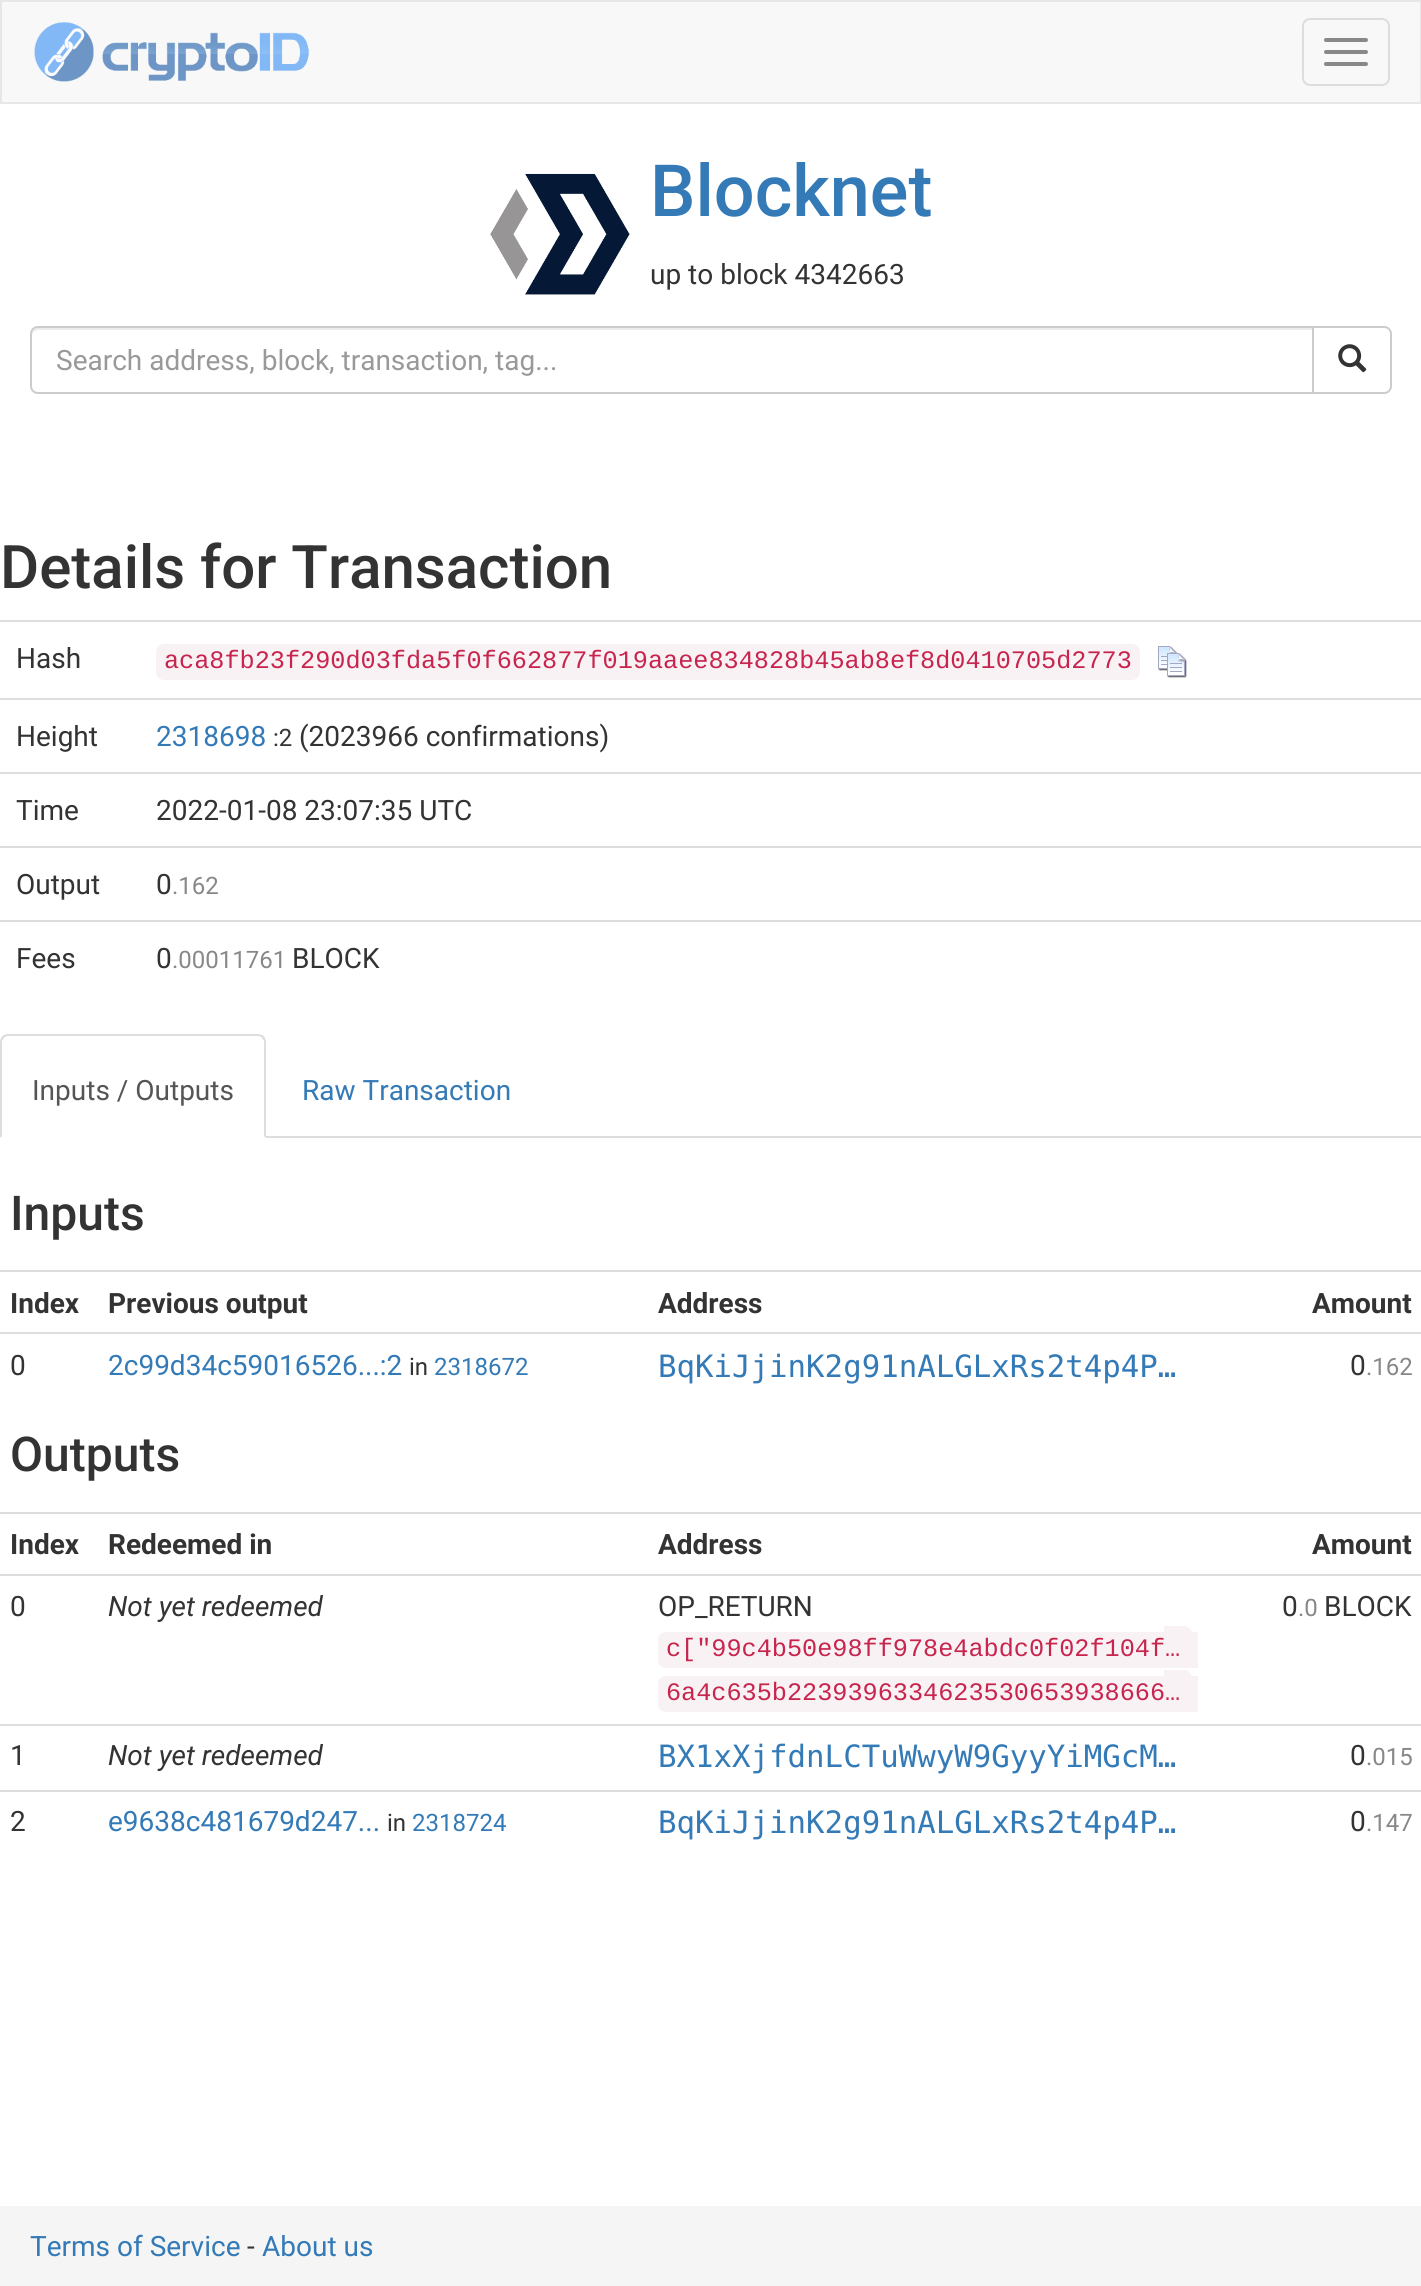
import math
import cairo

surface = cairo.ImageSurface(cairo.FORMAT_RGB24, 1421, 2286)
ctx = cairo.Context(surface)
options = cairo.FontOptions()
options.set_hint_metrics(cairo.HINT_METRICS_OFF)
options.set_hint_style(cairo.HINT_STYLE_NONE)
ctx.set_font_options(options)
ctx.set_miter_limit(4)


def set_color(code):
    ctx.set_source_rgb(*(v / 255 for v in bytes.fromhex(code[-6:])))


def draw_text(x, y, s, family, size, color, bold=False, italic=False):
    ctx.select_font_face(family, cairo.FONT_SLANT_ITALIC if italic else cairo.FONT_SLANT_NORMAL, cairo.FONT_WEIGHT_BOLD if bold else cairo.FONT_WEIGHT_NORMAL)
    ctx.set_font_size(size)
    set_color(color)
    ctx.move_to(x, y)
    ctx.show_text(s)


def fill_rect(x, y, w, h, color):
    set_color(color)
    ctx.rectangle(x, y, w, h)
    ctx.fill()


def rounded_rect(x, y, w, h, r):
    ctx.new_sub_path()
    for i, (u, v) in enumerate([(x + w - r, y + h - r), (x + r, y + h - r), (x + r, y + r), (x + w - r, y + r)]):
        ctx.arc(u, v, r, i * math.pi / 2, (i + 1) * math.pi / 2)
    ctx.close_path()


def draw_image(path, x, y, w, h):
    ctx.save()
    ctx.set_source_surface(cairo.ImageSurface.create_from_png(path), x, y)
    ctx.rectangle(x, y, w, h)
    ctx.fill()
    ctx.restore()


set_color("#ffffff")
ctx.paint()
set_color("#f8f8f8")
ctx.rectangle(1, 1, 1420, 102)
ctx.fill_preserve()
set_color("#e7e7e7")
ctx.stroke()
draw_image("assets/img1.png", 34, 22, 275, 60)
rounded_rect(1303, 19, 86, 66, 7)
set_color("#dddddd")
ctx.stroke()
set_color("#888888")
rounded_rect(1324, 38, 44, 4, 2)
ctx.fill()
rounded_rect(1324, 50, 44, 4, 2)
ctx.fill()
rounded_rect(1324, 62, 44, 4, 2)
ctx.fill()
draw_image("assets/img2.png", 490, 173, 140, 122)
draw_text(650, 216, "Blocknet", "Roboto Medium", 72, "#337ab7")
draw_text(650, 284, "up to block 4342663", "Roboto", 28, "#333333")
set_color("#ececec")
ctx.new_path()
ctx.move_to(38, 330)
ctx.line_to(1312, 330)
ctx.line_to(1312, 328)
ctx.line_to(38, 328)
ctx.curve_to(35, 328, 32, 331, 32, 334)
ctx.line_to(32, 336)
ctx.curve_to(32, 333, 35, 330, 38, 330)
ctx.close_path()
ctx.fill()
ctx.new_path()
ctx.move_to(38, 327)
ctx.line_to(1313, 327)
ctx.line_to(1313, 393)
ctx.line_to(38, 393)
ctx.curve_to(34, 393, 31, 390, 31, 386)
ctx.line_to(31, 334)
ctx.curve_to(31, 330, 34, 327, 38, 327)
ctx.close_path()
set_color("#cccccc")
ctx.stroke()
draw_text(56, 370, "Search address, block, transaction, tag...", "Roboto", 28, "#999999")
set_color("#ffffff")
ctx.new_path()
ctx.move_to(1313, 327)
ctx.line_to(1384, 327)
ctx.curve_to(1388, 327, 1391, 330, 1391, 334)
ctx.line_to(1391, 386)
ctx.curve_to(1391, 390, 1388, 393, 1384, 393)
ctx.line_to(1313, 393)
ctx.close_path()
ctx.fill_preserve()
set_color("#cccccc")
ctx.stroke()
draw_image("assets/img3.png", 1338, 344, 29, 29)
draw_text(0, 588, "Details for Transaction", "Roboto Medium", 60, "#333333")
draw_text(16, 668, "Hash", "Roboto", 28, "#333333")
fill_rect(0, 620, 1421, 2, "#dddddd")
set_color("#f9f2f4")
rounded_rect(156, 644, 984, 36, 8)
ctx.fill()
draw_text(164, 668, "aca8fb23f290d03fda5f0f662877f019aaee834828b45ab8ef8d0410705d2773", "Liberation Mono", 25.2, "#c7254e")
draw_image("assets/img4.png", 1158, 646, 29, 32)
draw_text(16, 746, "Height", "Roboto", 28, "#333333")
fill_rect(0, 698, 1421, 2, "#dddddd")
draw_text(156, 746, "2318698", "Roboto", 28, "#337ab7")
draw_text(273, 746, ":2", "Roboto", 24, "#333333")
draw_text(299, 746, "(2023966 confirmations)", "Roboto", 28, "#333333")
draw_text(16, 820, "Time", "Roboto", 28, "#333333")
fill_rect(0, 772, 1421, 2, "#dddddd")
draw_text(156, 820, "2022-01-08 23:07:35 UTC", "Roboto", 28, "#333333")
draw_text(16, 894, "Output", "Roboto", 28, "#333333")
fill_rect(0, 846, 1421, 2, "#dddddd")
draw_text(156, 894, "0", "Roboto", 28, "#333333")
draw_text(172, 894, ".162", "Roboto", 24, "#888888")
draw_text(16, 968, "Fees", "Roboto", 28, "#333333")
fill_rect(0, 920, 1421, 2, "#dddddd")
draw_text(156, 968, "0", "Roboto", 28, "#333333")
draw_text(172, 968, ".00011761", "Roboto", 24, "#888888")
draw_text(292, 968, "BLOCK", "Roboto", 28, "#333333")
fill_rect(266, 1136, 1155, 2, "#dddddd")
ctx.new_path()
ctx.move_to(8, 1034)
ctx.curve_to(6, 1034, 4, 1035, 2, 1036)
ctx.line_to(4, 1038)
ctx.curve_to(5, 1037, 6, 1036, 8, 1036)
ctx.line_to(258, 1036)
ctx.curve_to(260, 1036, 261, 1037, 262, 1038)
ctx.line_to(264, 1036)
ctx.curve_to(262, 1035, 260, 1034, 258, 1034)
ctx.close_path()
ctx.fill()
ctx.new_path()
ctx.move_to(266, 1138)
ctx.line_to(266, 1041)
ctx.line_to(264, 1036)
ctx.line_to(262, 1038)
ctx.line_to(264, 1041)
ctx.line_to(264, 1136)
ctx.close_path()
ctx.fill()
ctx.new_path()
ctx.move_to(0, 1138)
ctx.line_to(2, 1136)
ctx.line_to(2, 1041)
ctx.line_to(4, 1038)
ctx.line_to(2, 1036)
ctx.curve_to(1, 1038, 0, 1040, 0, 1042)
ctx.close_path()
ctx.fill()
draw_text(32, 1100, "Inputs / Outputs", "Roboto", 28, "#555555")
draw_text(302, 1100, "Raw Transaction", "Roboto", 28, "#337ab7")
draw_text(10, 1230, "Inputs", "Roboto Medium", 48, "#333333")
draw_text(10, 1313, "Index", "Roboto", 28, "#333333", bold=True)
draw_text(108, 1313, "Previous output", "Roboto", 28, "#333333", bold=True)
draw_text(658, 1313, "Address", "Roboto", 28, "#333333", bold=True)
fill_rect(0, 1270, 1421, 2, "#dddddd")
draw_text(1312, 1313, "Amount", "Roboto", 28, "#333333", bold=True)
draw_text(10, 1375, "0", "Roboto", 28, "#333333")
draw_text(108, 1375, "2c99d34c59016526...:2", "Roboto", 28, "#337ab7")
draw_text(409, 1375, "in", "Roboto", 24, "#333333")
draw_text(434, 1375, "2318672", "Roboto", 24, "#337ab7")
draw_text(658, 1377, "BqKiJjinK2g91nALGLxRs2t4p4P…", "DejaVu Sans Mono", 30.75, "#337ab7")
fill_rect(0, 1332, 1421, 2, "#dddddd")
draw_text(1350, 1375, "0", "Roboto", 28, "#333333")
draw_text(1366, 1375, ".162", "Roboto", 24, "#888888")
draw_text(10, 1471, "Outputs", "Roboto Medium", 48, "#333333")
draw_text(10, 1554, "Index", "Roboto", 28, "#333333", bold=True)
draw_text(108, 1554, "Redeemed in", "Roboto", 28, "#333333", bold=True)
draw_text(658, 1554, "Address", "Roboto", 28, "#333333", bold=True)
fill_rect(0, 1512, 1421, 2, "#dddddd")
draw_text(1312, 1554, "Amount", "Roboto", 28, "#333333", bold=True)
draw_text(10, 1616, "0", "Roboto", 28, "#333333")
draw_text(108, 1616, "Not yet redeemed", "Roboto", 28, "#333333", italic=True)
draw_text(658, 1616, "OP_RETURN", "Roboto", 28, "#333333")
set_color("#f9f2f4")
ctx.new_path()
ctx.move_to(666, 1632)
ctx.line_to(1198, 1632)
ctx.line_to(1198, 1668)
ctx.line_to(666, 1668)
ctx.curve_to(661.5, 1668, 658, 1664.5, 658, 1660)
ctx.line_to(658, 1640)
ctx.curve_to(658, 1635.5, 661.5, 1632, 666, 1632)
ctx.close_path()
ctx.fill()
ctx.new_path()
ctx.move_to(1164, 1626)
ctx.line_to(1184, 1626)
ctx.curve_to(1188.5, 1626, 1192, 1629.5, 1192, 1634)
ctx.line_to(1192, 1658)
ctx.curve_to(1192, 1662.5, 1188.5, 1666, 1184, 1666)
ctx.line_to(1164, 1666)
ctx.close_path()
ctx.fill()
draw_text(666, 1656, "c[\"99c4b50e98ff978e4abdc0f02f104f…", "Liberation Mono", 25.2, "#c7254e")
set_color("#f9f2f4")
ctx.new_path()
ctx.move_to(666, 1676)
ctx.line_to(1198, 1676)
ctx.line_to(1198, 1712)
ctx.line_to(666, 1712)
ctx.curve_to(661.5, 1712, 658, 1708.5, 658, 1704)
ctx.line_to(658, 1684)
ctx.curve_to(658, 1679.5, 661.5, 1676, 666, 1676)
ctx.close_path()
ctx.fill()
ctx.new_path()
ctx.move_to(1164, 1670)
ctx.line_to(1184, 1670)
ctx.curve_to(1188.5, 1670, 1192, 1673.5, 1192, 1678)
ctx.line_to(1192, 1702)
ctx.curve_to(1192, 1706.5, 1188.5, 1710, 1184, 1710)
ctx.line_to(1164, 1710)
ctx.close_path()
ctx.fill()
draw_text(666, 1700, "6a4c635b2239396334623530653938666…", "Liberation Mono", 25.2, "#c7254e")
fill_rect(0, 1574, 1421, 2, "#dddddd")
draw_text(1282, 1616, "0", "Roboto", 28, "#333333")
draw_text(1298, 1616, ".0", "Roboto", 24, "#888888")
draw_text(1324, 1616, "BLOCK", "Roboto", 28, "#333333")
draw_text(10, 1765, "1", "Roboto", 28, "#333333")
draw_text(108, 1765, "Not yet redeemed", "Roboto", 28, "#333333", italic=True)
draw_text(658, 1767, "BX1xXjfdnLCTuWwyW9GyyYiMGcM…", "DejaVu Sans Mono", 30.75, "#337ab7")
fill_rect(0, 1724, 1421, 2, "#dddddd")
draw_text(1350, 1765, "0", "Roboto", 28, "#333333")
draw_text(1366, 1765, ".015", "Roboto", 24, "#888888")
draw_text(10, 1831, "2", "Roboto", 28, "#333333")
draw_text(108, 1831, "e9638c481679d247...", "Roboto", 28, "#337ab7")
draw_text(387, 1831, "in", "Roboto", 24, "#333333")
draw_text(412, 1831, "2318724", "Roboto", 24, "#337ab7")
draw_text(658, 1833, "BqKiJjinK2g91nALGLxRs2t4p4P…", "DejaVu Sans Mono", 30.75, "#337ab7")
fill_rect(0, 1790, 1421, 2, "#dddddd")
draw_text(1350, 1831, "0", "Roboto", 28, "#333333")
draw_text(1366, 1831, ".147", "Roboto", 24, "#888888")
fill_rect(0, 2206, 1421, 80, "#f5f5f5")
draw_text(30, 2256, "Terms of Service", "Roboto", 28, "#337ab7")
draw_text(247, 2256, "-", "Roboto", 28, "#333333")
draw_text(262, 2256, "About us", "Roboto", 28, "#337ab7")
surface.write_to_png("output.png")
